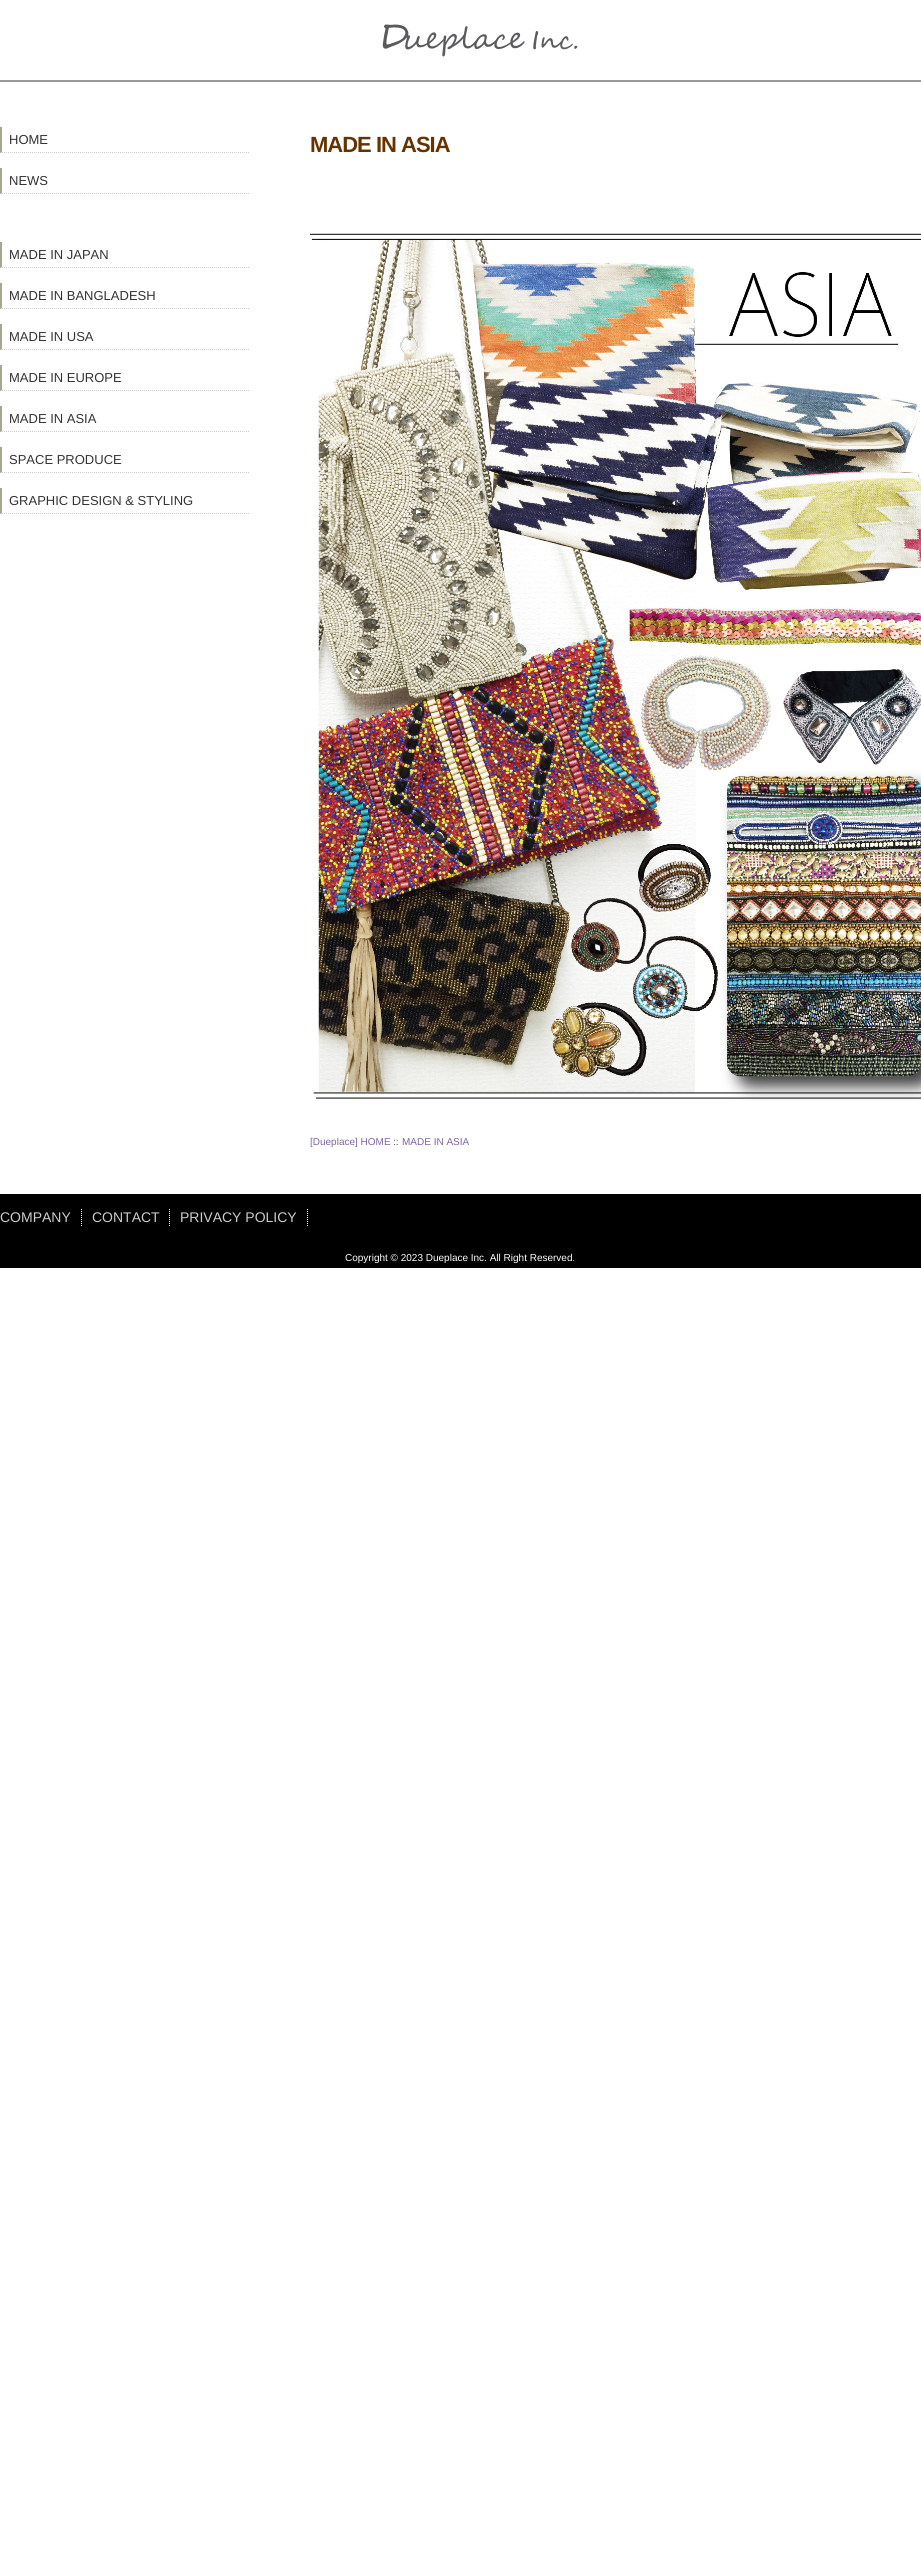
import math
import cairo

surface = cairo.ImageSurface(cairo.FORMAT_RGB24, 921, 2559)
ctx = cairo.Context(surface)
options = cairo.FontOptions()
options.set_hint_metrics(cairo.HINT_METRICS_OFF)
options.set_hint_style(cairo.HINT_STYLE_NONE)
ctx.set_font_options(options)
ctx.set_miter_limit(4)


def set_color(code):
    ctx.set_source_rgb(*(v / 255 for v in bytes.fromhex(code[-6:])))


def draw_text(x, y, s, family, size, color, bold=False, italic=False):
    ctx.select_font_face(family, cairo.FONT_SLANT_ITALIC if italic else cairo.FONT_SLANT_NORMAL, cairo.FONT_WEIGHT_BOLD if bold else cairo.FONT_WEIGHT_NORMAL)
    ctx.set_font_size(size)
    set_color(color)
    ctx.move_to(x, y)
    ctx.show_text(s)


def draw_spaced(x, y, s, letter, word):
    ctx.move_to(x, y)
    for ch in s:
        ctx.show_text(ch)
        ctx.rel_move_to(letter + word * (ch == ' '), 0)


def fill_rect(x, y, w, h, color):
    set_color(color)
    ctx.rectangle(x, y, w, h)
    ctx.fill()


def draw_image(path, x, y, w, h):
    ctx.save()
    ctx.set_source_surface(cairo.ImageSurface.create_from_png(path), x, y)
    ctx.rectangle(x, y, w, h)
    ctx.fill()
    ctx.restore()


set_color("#ffffff")
ctx.paint()
fill_rect(0, 80, 921, 2, "#999999")
draw_image("assets/img1.png", 382, 24, 196, 33)
ctx.new_path()
ctx.move_to(0, 152.5)
ctx.line_to(249, 152.5)
set_color("#cccccc")
ctx.set_line_width(1)
ctx.set_dash([1, 1])
ctx.stroke()
set_color("#aaa591")
ctx.new_path()
ctx.move_to(0, 153)
ctx.line_to(0, 127)
ctx.line_to(2, 127)
ctx.line_to(2, 152)
ctx.close_path()
ctx.fill()
draw_text(9, 144, "HOME", "Liberation Sans", 13, "#333333")
ctx.new_path()
ctx.move_to(0, 193.5)
ctx.line_to(249, 193.5)
set_color("#cccccc")
ctx.stroke()
set_color("#aaa591")
ctx.new_path()
ctx.move_to(0, 194)
ctx.line_to(0, 168)
ctx.line_to(2, 168)
ctx.line_to(2, 193)
ctx.close_path()
ctx.fill()
draw_text(9, 185, "NEWS", "Liberation Sans", 13, "#333333")
ctx.new_path()
ctx.move_to(0, 267.5)
ctx.line_to(249, 267.5)
set_color("#cccccc")
ctx.stroke()
set_color("#aaa591")
ctx.new_path()
ctx.move_to(0, 268)
ctx.line_to(0, 242)
ctx.line_to(2, 242)
ctx.line_to(2, 267)
ctx.close_path()
ctx.fill()
draw_text(9, 259, "MADE IN JAPAN", "Liberation Sans", 13, "#333333")
ctx.new_path()
ctx.move_to(0, 308.5)
ctx.line_to(249, 308.5)
set_color("#cccccc")
ctx.stroke()
set_color("#aaa591")
ctx.new_path()
ctx.move_to(0, 309)
ctx.line_to(0, 283)
ctx.line_to(2, 283)
ctx.line_to(2, 308)
ctx.close_path()
ctx.fill()
draw_text(9, 300, "MADE IN BANGLADESH", "Liberation Sans", 13, "#333333")
ctx.new_path()
ctx.move_to(0, 349.5)
ctx.line_to(249, 349.5)
set_color("#cccccc")
ctx.stroke()
set_color("#aaa591")
ctx.new_path()
ctx.move_to(0, 350)
ctx.line_to(0, 324)
ctx.line_to(2, 324)
ctx.line_to(2, 349)
ctx.close_path()
ctx.fill()
draw_text(9, 341, "MADE IN USA", "Liberation Sans", 13, "#333333")
ctx.new_path()
ctx.move_to(0, 390.5)
ctx.line_to(249, 390.5)
set_color("#cccccc")
ctx.stroke()
set_color("#aaa591")
ctx.new_path()
ctx.move_to(0, 391)
ctx.line_to(0, 365)
ctx.line_to(2, 365)
ctx.line_to(2, 390)
ctx.close_path()
ctx.fill()
draw_text(9, 382, "MADE IN EUROPE", "Liberation Sans", 13, "#333333")
ctx.new_path()
ctx.move_to(0, 431.5)
ctx.line_to(249, 431.5)
set_color("#cccccc")
ctx.stroke()
set_color("#aaa591")
ctx.new_path()
ctx.move_to(0, 432)
ctx.line_to(0, 406)
ctx.line_to(2, 406)
ctx.line_to(2, 431)
ctx.close_path()
ctx.fill()
draw_text(9, 423, "MADE IN ASIA", "Liberation Sans", 13, "#333333")
ctx.new_path()
ctx.move_to(0, 472.5)
ctx.line_to(249, 472.5)
set_color("#cccccc")
ctx.stroke()
set_color("#aaa591")
ctx.new_path()
ctx.move_to(0, 473)
ctx.line_to(0, 447)
ctx.line_to(2, 447)
ctx.line_to(2, 472)
ctx.close_path()
ctx.fill()
draw_text(9, 464, "SPACE PRODUCE", "Liberation Sans", 13, "#333333")
ctx.new_path()
ctx.move_to(0, 513.5)
ctx.line_to(249, 513.5)
set_color("#cccccc")
ctx.stroke()
set_color("#aaa591")
ctx.new_path()
ctx.move_to(0, 514)
ctx.line_to(0, 488)
ctx.line_to(2, 488)
ctx.line_to(2, 513)
ctx.close_path()
ctx.fill()
draw_text(9, 505, "GRAPHIC DESIGN & STYLING", "Liberation Sans", 13, "#333333")
ctx.select_font_face("Liberation Sans", cairo.FONT_SLANT_NORMAL, cairo.FONT_WEIGHT_BOLD)
ctx.set_font_size(22)
set_color("#663300")
draw_spaced(310, 152, "MADE IN ASIA", -1, 0)
draw_image("assets/img2.png", 310, 233, 611, 868)
draw_text(310, 1145, "[Dueplace] HOME", "Liberation Sans", 10, "#8064a2")
draw_text(393, 1145, "::", "Liberation Sans", 10, "#474747")
draw_text(402, 1145, "MADE IN ASIA", "Liberation Sans", 10, "#8064a2")
fill_rect(0, 1194, 921, 74, "#000000")
ctx.new_path()
ctx.move_to(81.5, 1209)
ctx.line_to(81.5, 1227)
set_color("#ffffff")
ctx.stroke()
draw_text(0, 1222, "COMPANY", "Liberation Sans", 14, "#cccccc")
ctx.new_path()
ctx.move_to(169.5, 1209)
ctx.line_to(169.5, 1227)
set_color("#ffffff")
ctx.stroke()
draw_text(92, 1222, "CONTACT", "Liberation Sans", 14, "#cccccc")
ctx.new_path()
ctx.move_to(307.5, 1209)
ctx.line_to(307.5, 1227)
set_color("#ffffff")
ctx.stroke()
draw_text(180, 1222, "PRIVACY POLICY", "Liberation Sans", 14, "#cccccc")
draw_text(345, 1261, "Copyright © 2023 Dueplace Inc. All Right Reserved.", "Liberation Sans", 10, "#ffffff")
surface.write_to_png("output.png")
